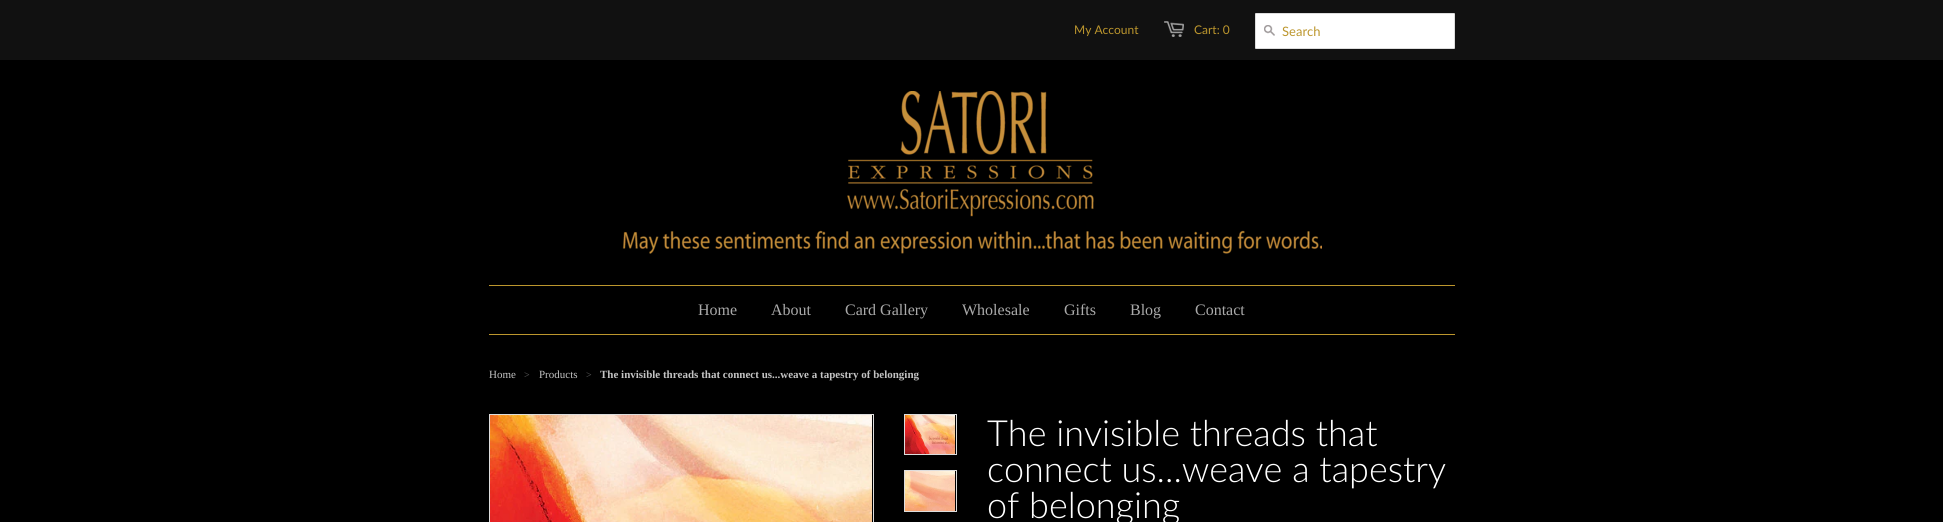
import math
import cairo

surface = cairo.ImageSurface(cairo.FORMAT_RGB24, 1943, 522)
ctx = cairo.Context(surface)
options = cairo.FontOptions()
options.set_hint_metrics(cairo.HINT_METRICS_OFF)
options.set_hint_style(cairo.HINT_STYLE_NONE)
ctx.set_font_options(options)
ctx.set_miter_limit(4)


def set_color(code):
    ctx.set_source_rgb(*(v / 255 for v in bytes.fromhex(code[-6:])))


def draw_text(x, y, s, family, size, color, bold=False, italic=False):
    ctx.select_font_face(family, cairo.FONT_SLANT_ITALIC if italic else cairo.FONT_SLANT_NORMAL, cairo.FONT_WEIGHT_BOLD if bold else cairo.FONT_WEIGHT_NORMAL)
    ctx.set_font_size(size)
    set_color(color)
    ctx.move_to(x, y)
    ctx.show_text(s)


def fill_rect(x, y, w, h, color):
    set_color(color)
    ctx.rectangle(x, y, w, h)
    ctx.fill()


def rounded_rect(x, y, w, h, r):
    ctx.new_sub_path()
    for i, (u, v) in enumerate([(x + w - r, y + h - r), (x + r, y + h - r), (x + r, y + r), (x + w - r, y + r)]):
        ctx.arc(u, v, r, i * math.pi / 2, (i + 1) * math.pi / 2)
    ctx.close_path()


def draw_image(path, x, y, w, h):
    ctx.save()
    ctx.set_source_surface(cairo.ImageSurface.create_from_png(path), x, y)
    ctx.rectangle(x, y, w, h)
    ctx.fill()
    ctx.restore()


set_color("#000000")
ctx.paint()
fill_rect(0, 0, 1943, 60, "#111111")
draw_text(1074, 34, "My Account", "Lato", 12, "#bc962d")
draw_image("assets/img1.png", 1164, 21, 20, 16)
draw_text(1194, 34, "Cart: 0", "Lato", 12, "#bc962d")
set_color("#ffffff")
rounded_rect(1255.5, 13.5, 199, 35, 0.5)
ctx.fill_preserve()
set_color("#dddddd")
ctx.set_line_width(1)
ctx.stroke()
draw_image("assets/img2.png", 1264, 25, 11, 11)
draw_text(1282, 36, "Search", "Lato", 13, "#bc962d")
draw_image("assets/img3.png", 622, 91, 700, 163)
fill_rect(489, 285, 966, 1, "#bc962d")
fill_rect(489, 334, 966, 1, "#bc962d")
draw_text(698, 315, "Home", "Liberation Serif", 16, "#aaaaaa")
draw_text(771, 315, "About", "Liberation Serif", 16, "#aaaaaa")
draw_text(845, 315, "Card Gallery", "Liberation Serif", 16, "#aaaaaa")
draw_text(962, 315, "Wholesale", "Liberation Serif", 16, "#aaaaaa")
draw_text(1064, 315, "Gifts", "Liberation Serif", 16, "#aaaaaa")
draw_text(1130, 315, "Blog", "Liberation Serif", 16, "#aaaaaa")
draw_text(1195, 315, "Contact", "Liberation Serif", 16, "#aaaaaa")
draw_text(489, 378, "Home", "Liberation Serif", 11, "#c4c4c4")
draw_text(524, 378, ">", "Liberation Serif", 10, "#626262")
draw_text(539, 378, "Products", "Liberation Serif", 11, "#c4c4c4")
draw_text(586, 378, ">", "Liberation Serif", 10, "#626262")
draw_text(600, 378, "The invisible threads that connect us...weave a tapestry of belonging", "Liberation Serif", 11, "#c4c4c4", bold=True)
ctx.rectangle(489.5, 414.5, 384, 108)
set_color("#dddddd")
ctx.stroke()
draw_image("assets/img4.png", 490, 415, 382, 107)
ctx.rectangle(904.5, 414.5, 52, 40)
ctx.stroke()
draw_image("assets/img5.png", 905, 415, 50, 39)
ctx.rectangle(904.5, 470.5, 52, 41)
ctx.stroke()
draw_image("assets/img6.png", 905, 471, 50, 40)
draw_text(987, 446, "The invisible threads that", "Lato Light", 36, "#ffffff")
draw_text(987, 482, "connect us...weave a tapestry", "Lato Light", 36, "#ffffff")
draw_text(987, 518, "of belonging", "Lato Light", 36, "#ffffff")
surface.write_to_png("output.png")
